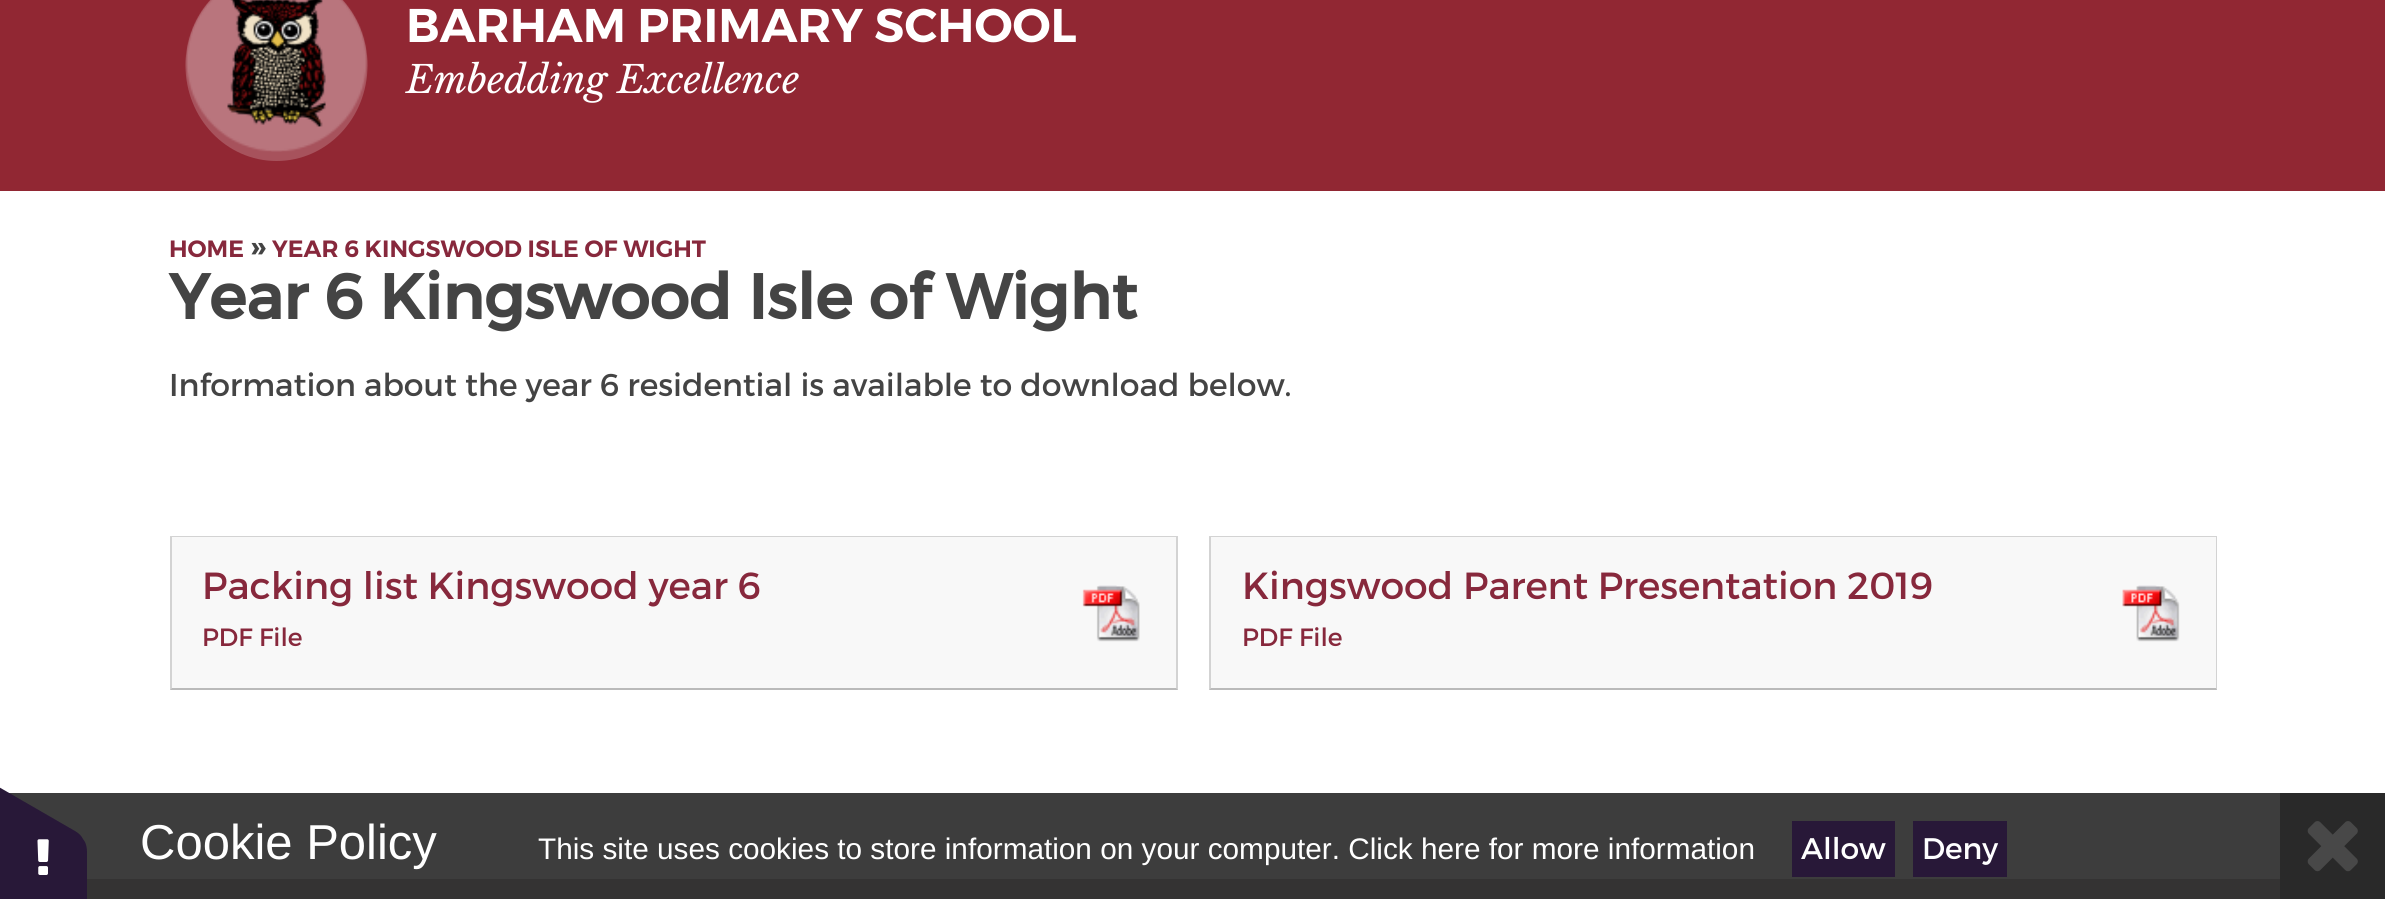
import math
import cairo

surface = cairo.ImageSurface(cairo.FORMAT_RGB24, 2385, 899)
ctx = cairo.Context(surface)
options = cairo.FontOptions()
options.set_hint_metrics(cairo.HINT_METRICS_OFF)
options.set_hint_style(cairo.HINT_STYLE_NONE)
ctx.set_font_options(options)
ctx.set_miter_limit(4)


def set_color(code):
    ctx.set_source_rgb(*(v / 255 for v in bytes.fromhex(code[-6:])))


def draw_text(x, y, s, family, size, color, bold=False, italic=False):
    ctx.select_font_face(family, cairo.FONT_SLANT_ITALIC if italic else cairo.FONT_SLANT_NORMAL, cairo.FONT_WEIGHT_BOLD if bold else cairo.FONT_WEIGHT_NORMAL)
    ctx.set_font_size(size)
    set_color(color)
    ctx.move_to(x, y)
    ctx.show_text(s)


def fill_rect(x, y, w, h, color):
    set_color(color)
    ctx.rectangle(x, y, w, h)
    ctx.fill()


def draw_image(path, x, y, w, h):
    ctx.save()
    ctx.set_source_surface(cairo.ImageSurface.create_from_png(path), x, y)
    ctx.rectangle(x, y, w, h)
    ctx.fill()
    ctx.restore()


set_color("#ffffff")
ctx.paint()
fill_rect(9, 793, 2271, 86, "#3d3d3d")
fill_rect(0, 0, 2385, 191, "#912733")
set_color("#a7525c")
ctx.new_path()
ctx.move_to(276.5, -30)
ctx.curve_to(327, -30, 367.5, 13, 367.5, 65.5)
ctx.curve_to(367.5, 118, 327, 161, 276.5, 161)
ctx.curve_to(226, 161, 185.5, 118, 185.5, 65.5)
ctx.curve_to(185.5, 13, 226, -30, 276.5, -30)
ctx.close_path()
ctx.fill()
draw_image("assets/img1.png", 185, 0, 183, 152)
draw_text(406, 42, "BARHAM PRIMARY SCHOOL", "Montserrat SemiBold", 47.25, "#ffffff")
draw_text(406, 93, "Embedding Excellence", "Libre Baskerville", 37.75, "#ffffff", italic=True)
draw_text(169, 257, "HOME", "Montserrat SemiBold", 23.6, "#87283c")
draw_text(250, 257, "»", "Montserrat SemiBold", 31.5, "#444444")
draw_text(272, 257, "YEAR 6 KINGSWOOD ISLE OF WIGHT", "Montserrat SemiBold", 23.6, "#87283c")
draw_text(169, 319, "Year 6 Kingswood Isle of Wight", "Montserrat", 63, "#444444", bold=True)
draw_text(169, 396, "Information about the year 6 residential is available to download below.", "Montserrat", 31.5, "#444444")
fill_rect(170, 536, 1008, 154, "#f8f8f8")
set_color("#d3d3d3")
ctx.new_path()
ctx.move_to(170, 536)
ctx.line_to(1178, 536)
ctx.line_to(1176, 537)
ctx.line_to(172, 537)
ctx.close_path()
ctx.fill()
ctx.set_source_rgba(0, 0, 0, 0.15)
ctx.new_path()
ctx.move_to(1178, 536)
ctx.line_to(1178, 690)
ctx.line_to(1176, 688)
ctx.line_to(1176, 537)
ctx.close_path()
ctx.fill()
ctx.set_source_rgba(0, 0, 0, 0.25)
ctx.new_path()
ctx.move_to(1178, 690)
ctx.line_to(170, 690)
ctx.line_to(172, 688)
ctx.line_to(1176, 688)
ctx.close_path()
ctx.fill()
ctx.set_source_rgba(0, 0, 0, 0.15)
ctx.new_path()
ctx.move_to(170, 690)
ctx.line_to(170, 536)
ctx.line_to(172, 537)
ctx.line_to(172, 688)
ctx.close_path()
ctx.fill()
draw_text(202, 599, "Packing list Kingswood year 6", "Montserrat", 37.75, "#87283c")
draw_text(202, 646, "PDF File", "Montserrat", 25, "#87283c")
draw_image("assets/img2.png", 1082, 585, 58, 57)
fill_rect(1209, 536, 1008, 154, "#f8f8f8")
set_color("#d3d3d3")
ctx.new_path()
ctx.move_to(1209, 536)
ctx.line_to(2217, 536)
ctx.line_to(2216, 537)
ctx.line_to(1211, 537)
ctx.close_path()
ctx.fill()
ctx.set_source_rgba(0, 0, 0, 0.15)
ctx.new_path()
ctx.move_to(2217, 536)
ctx.line_to(2217, 690)
ctx.line_to(2216, 688)
ctx.line_to(2216, 537)
ctx.close_path()
ctx.fill()
ctx.set_source_rgba(0, 0, 0, 0.25)
ctx.new_path()
ctx.move_to(2217, 690)
ctx.line_to(1209, 690)
ctx.line_to(1211, 688)
ctx.line_to(2216, 688)
ctx.close_path()
ctx.fill()
ctx.set_source_rgba(0, 0, 0, 0.15)
ctx.new_path()
ctx.move_to(1209, 690)
ctx.line_to(1209, 536)
ctx.line_to(1211, 537)
ctx.line_to(1211, 688)
ctx.close_path()
ctx.fill()
draw_text(1242, 599, "Kingswood Parent Presentation 2019", "Montserrat", 37.75, "#87283c")
draw_text(1242, 646, "PDF File", "Montserrat", 25, "#87283c")
draw_image("assets/img3.png", 2122, 585, 58, 57)
fill_rect(87, 879, 2193, 20, "#343333")
set_color("#281838")
ctx.new_path()
ctx.move_to(87, 852)
ctx.line_to(87, 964)
ctx.curve_to(87, 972, 84, 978, 80, 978)
ctx.line_to(-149, 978)
ctx.curve_to(-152, 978, -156, 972, -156, 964)
ctx.line_to(-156, 852)
ctx.curve_to(-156, 844, -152, 838, -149, 838)
ctx.line_to(80, 838)
ctx.curve_to(84, 838, 87, 844, 87, 852)
ctx.close_path()
ctx.fill()
ctx.new_path()
ctx.move_to(-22, 775)
ctx.line_to(75, 831)
ctx.curve_to(82, 835, 85, 841, 83, 844)
ctx.line_to(-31, 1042)
ctx.curve_to(-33, 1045, -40, 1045, -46, 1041)
ctx.line_to(-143, 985)
ctx.curve_to(-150, 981, -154, 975, -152, 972)
ctx.line_to(-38, 774)
ctx.curve_to(-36, 771, -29, 771, -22, 775)
ctx.close_path()
ctx.fill()
draw_image("assets/img4.png", 37, 839, 12, 36)
draw_text(140, 859, "Cookie Policy", "Liberation Sans", 49, "#ffffff")
draw_text(538, 859, "This site uses cookies to store information on your computer. Click here for more information", "Liberation Sans", 29.75, "#ffffff")
fill_rect(1792, 821, 103, 56, "#281838")
draw_text(1801, 859, "Allow", "Montserrat", 29.75, "#ffffff")
fill_rect(1913, 821, 94, 56, "#281838")
draw_text(1922, 859, "Deny", "Montserrat", 29.75, "#ffffff")
fill_rect(2280, 793, 105, 106, "#292929")
draw_image("assets/img5.png", 2307, 821, 51, 51)
surface.write_to_png("output.png")
